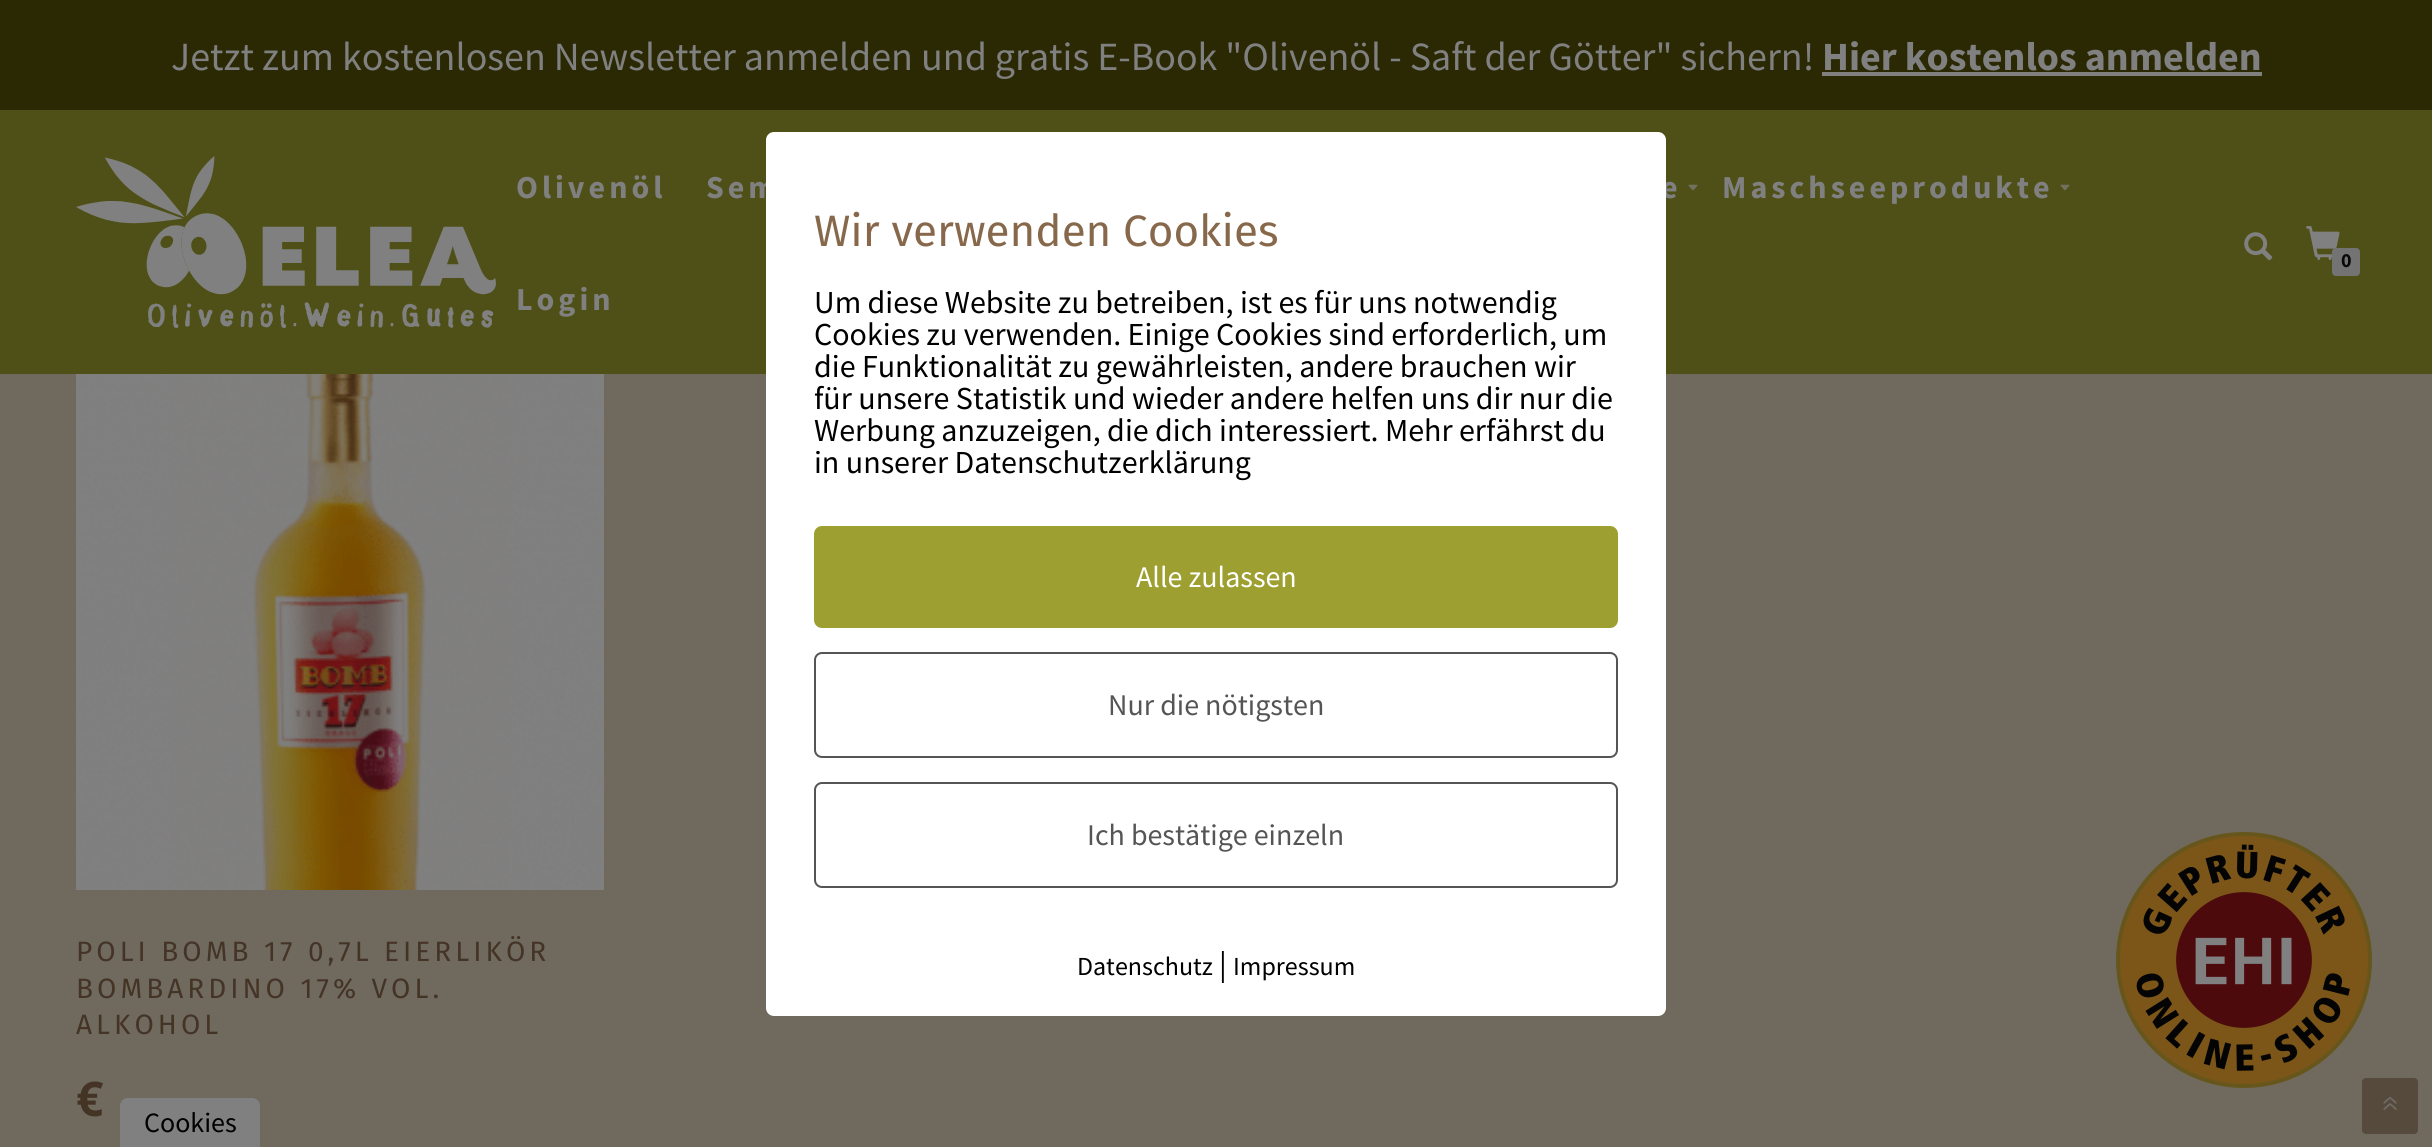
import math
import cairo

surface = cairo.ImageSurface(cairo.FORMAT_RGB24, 2432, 1147)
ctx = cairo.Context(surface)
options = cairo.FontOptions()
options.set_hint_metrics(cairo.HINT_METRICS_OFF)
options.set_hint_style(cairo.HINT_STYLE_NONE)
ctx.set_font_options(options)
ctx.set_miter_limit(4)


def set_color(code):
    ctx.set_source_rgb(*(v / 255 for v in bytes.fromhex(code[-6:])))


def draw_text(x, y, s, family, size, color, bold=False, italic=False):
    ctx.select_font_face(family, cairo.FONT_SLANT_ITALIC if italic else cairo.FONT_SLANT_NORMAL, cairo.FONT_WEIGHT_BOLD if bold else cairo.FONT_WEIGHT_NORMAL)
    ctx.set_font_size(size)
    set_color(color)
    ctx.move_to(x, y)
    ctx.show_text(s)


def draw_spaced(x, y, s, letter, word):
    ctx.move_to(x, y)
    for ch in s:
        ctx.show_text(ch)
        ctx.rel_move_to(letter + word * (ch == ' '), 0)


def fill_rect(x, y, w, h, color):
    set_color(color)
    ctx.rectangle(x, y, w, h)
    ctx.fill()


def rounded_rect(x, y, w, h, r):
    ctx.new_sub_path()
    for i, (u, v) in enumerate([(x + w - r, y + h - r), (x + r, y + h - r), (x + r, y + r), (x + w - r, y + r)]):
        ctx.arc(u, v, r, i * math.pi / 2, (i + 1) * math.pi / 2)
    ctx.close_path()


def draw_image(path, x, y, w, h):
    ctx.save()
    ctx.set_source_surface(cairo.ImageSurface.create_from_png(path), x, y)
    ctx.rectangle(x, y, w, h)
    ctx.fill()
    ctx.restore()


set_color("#706a5e")
ctx.paint()
fill_rect(0, 0, 2432, 110, "#2a2904")
draw_text(171, 70, "Jetzt zum kostenlosen Newsletter anmelden und gratis E-Book \"Olivenöl - Saft der Götter\" sichern!", "Source Sans Pro", 40, "#808080")
draw_text(1822, 70, "Hier kostenlos anmelden", "Source Sans Pro", 40, "#808080", bold=True)
fill_rect(1822, 72, 440, 4, "#808080")
fill_rect(0, 110, 2432, 264, "#4f5018")
draw_image("assets/img1.png", 76, 156, 420, 172)
ctx.set_font_size(32)
set_color("#808080")
draw_spaced(516, 198, "Olivenöl", 4, 0)
draw_spaced(706, 198, "Sem", 4, 0)
draw_spaced(1661, 198, "e", 4, 0)
draw_image("assets/img2.png", 1688, 184, 10, 7)
draw_spaced(1722, 198, "Maschseeprodukte", 4, 0)
draw_image("assets/img2.png", 2060, 184, 10, 7)
draw_spaced(516, 310, "Login", 4, 0)
draw_image("assets/img3.png", 2244, 232, 29, 29)
draw_image("assets/img4.png", 2306, 226, 34, 34)
set_color("#737373")
rounded_rect(2332, 248, 28, 28, 4)
ctx.fill()
draw_text(2341, 267, "0", "Source Sans Pro", 20, "#090909", bold=True)
draw_image("assets/img5.png", 76, 374, 528, 516)
ctx.select_font_face("Fira Sans")
ctx.set_font_size(28)
set_color("#443426")
draw_spaced(76, 961, "POLI BOMB 17 0,7L EIERLIKÖR", 4, 0)
draw_spaced(76, 998, "BOMBARDINO 17% VOL.", 4, 0)
draw_spaced(76, 1034, "ALKOHOL", 4, 0)
ctx.select_font_face("Open Sans", cairo.FONT_SLANT_NORMAL, cairo.FONT_WEIGHT_BOLD)
ctx.set_font_size(48)
draw_spaced(76, 1116, "€", 4, 0)
set_color("#ffffff")
rounded_rect(766, 132, 900, 884, 8)
ctx.fill()
draw_text(814, 246, "Wir verwenden Cookies", "Fira Sans", 44, "#87684b")
draw_text(814, 313, "Um diese Website zu betreiben, ist es für uns notwendig", "Source Sans Pro", 32, "#000000")
draw_text(814, 345, "Cookies zu verwenden. Einige Cookies sind erforderlich, um", "Source Sans Pro", 32, "#000000")
draw_text(814, 377, "die Funktionalität zu gewährleisten, andere brauchen wir", "Source Sans Pro", 32, "#000000")
draw_text(814, 409, "für unsere Statistik und wieder andere helfen uns dir nur die", "Source Sans Pro", 32, "#000000")
draw_text(814, 441, "Werbung anzuzeigen, die dich interessiert. Mehr erfährst du", "Source Sans Pro", 32, "#000000")
draw_text(814, 473, "in unserer Datenschutzerklärung", "Source Sans Pro", 32, "#000000")
set_color("#9d9f30")
rounded_rect(814, 526, 804, 102, 8)
ctx.fill()
draw_text(1136, 587, "Alle zulassen", "Source Sans Pro", 30, "#ffffff")
rounded_rect(815, 653, 802, 104, 7)
set_color("#555555")
ctx.stroke()
draw_text(1108, 715, "Nur die nötigsten", "Source Sans Pro", 30, "#555555")
rounded_rect(815, 783, 802, 104, 7)
ctx.stroke()
draw_text(1087, 845, "Ich bestätige einzeln", "Source Sans Pro", 30, "#555555")
draw_text(1077, 975, "Datenschutz", "Source Sans Pro", 26, "#000000")
draw_text(1219, 975, "|", "Source Sans Pro", 32, "#000000")
draw_text(1233, 975, "Impressum", "Source Sans Pro", 26, "#000000")
set_color("#554a3c")
rounded_rect(2362, 1078, 56, 56, 4)
ctx.fill()
draw_image("assets/img6.png", 2116, 832, 256, 256)
draw_image("assets/img7.png", 2383, 1096, 14, 14)
set_color("#808080")
ctx.new_path()
ctx.move_to(128, 1098)
ctx.line_to(252, 1098)
ctx.curve_to(256.5, 1098, 260, 1101.5, 260, 1106)
ctx.line_to(260, 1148)
ctx.line_to(120, 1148)
ctx.line_to(120, 1106)
ctx.curve_to(120, 1101.5, 123.5, 1098, 128, 1098)
ctx.close_path()
ctx.fill()
draw_text(144, 1132, "Cookies", "Source Sans Pro", 28, "#000000")
surface.write_to_png("output.png")
